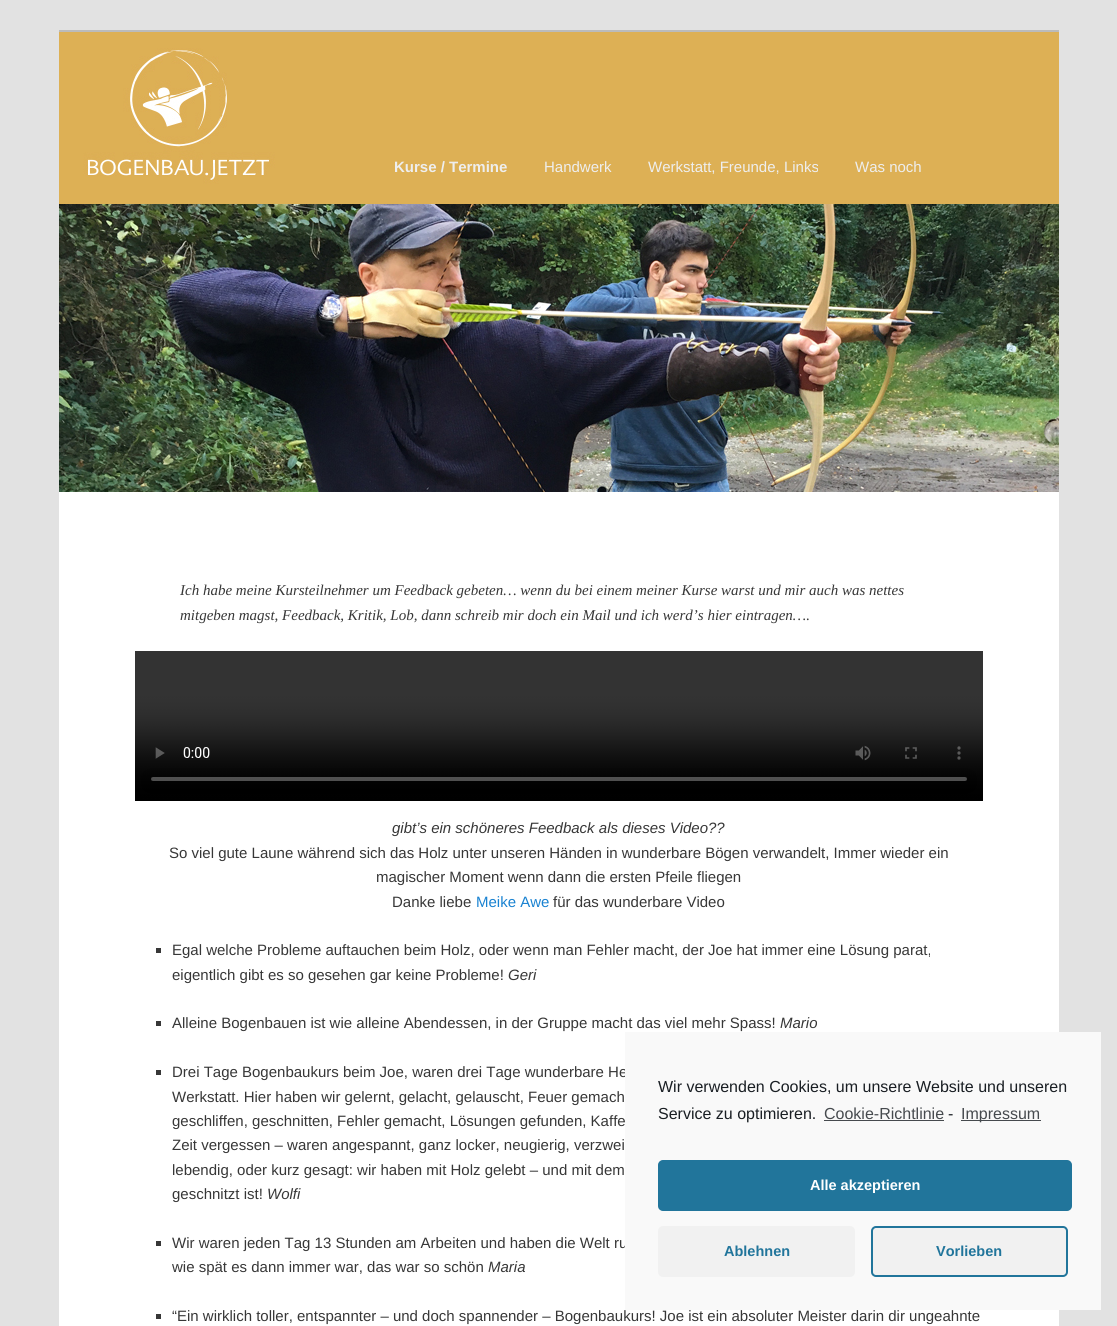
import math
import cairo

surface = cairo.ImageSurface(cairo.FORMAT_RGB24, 1117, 1326)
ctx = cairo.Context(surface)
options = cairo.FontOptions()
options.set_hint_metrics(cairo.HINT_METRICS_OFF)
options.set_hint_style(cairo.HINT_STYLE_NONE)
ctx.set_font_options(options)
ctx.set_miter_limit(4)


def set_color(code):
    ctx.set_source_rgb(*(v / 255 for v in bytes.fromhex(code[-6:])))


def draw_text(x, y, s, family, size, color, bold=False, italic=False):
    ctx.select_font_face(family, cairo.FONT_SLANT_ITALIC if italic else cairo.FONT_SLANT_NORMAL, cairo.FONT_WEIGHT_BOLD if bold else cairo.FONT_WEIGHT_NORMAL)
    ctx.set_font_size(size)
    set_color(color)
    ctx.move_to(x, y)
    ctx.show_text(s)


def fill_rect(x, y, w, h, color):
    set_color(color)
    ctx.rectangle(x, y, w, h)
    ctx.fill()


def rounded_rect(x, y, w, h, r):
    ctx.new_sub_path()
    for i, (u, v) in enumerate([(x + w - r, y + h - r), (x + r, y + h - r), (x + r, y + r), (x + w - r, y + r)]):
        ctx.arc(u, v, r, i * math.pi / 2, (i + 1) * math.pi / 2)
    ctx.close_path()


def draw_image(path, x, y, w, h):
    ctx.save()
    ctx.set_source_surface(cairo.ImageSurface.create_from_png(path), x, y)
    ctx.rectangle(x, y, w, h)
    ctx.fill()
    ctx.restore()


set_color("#e2e2e2")
ctx.paint()
fill_rect(59, 492, 1000, 834, "#ffffff")
fill_rect(59, 30, 1000, 2, "#bbbbbb")
draw_image("assets/img1.png", 59, 32, 1000, 172)
draw_text(394, 172, "Kurse / Termine", "Liberation Sans", 15, "#eeeeee", bold=True)
draw_text(544, 172, "Handwerk", "Liberation Sans", 15, "#eeeeee")
draw_text(648, 172, "Werkstatt, Freunde, Links", "Liberation Sans", 15, "#eeeeee")
draw_text(855, 172, "Was noch", "Liberation Sans", 15, "#eeeeee")
draw_image("assets/img2.png", 59, 204, 1000, 288)
draw_text(180, 595, "Ich habe meine Kursteilnehmer um Feedback gebeten… wenn du bei einem meiner Kurse warst und mir auch was nettes", "Liberation Serif", 15, "#373737", italic=True)
draw_text(180, 620, "mitgeben magst, Feedback, Kritik, Lob, dann schreib mir doch ein Mail und ich werd’s hier eintragen….", "Liberation Serif", 15, "#373737", italic=True)
draw_image("assets/img3.png", 135, 651, 848, 150)
draw_text(392, 833, "gibt’s ein schöneres Feedback als dieses Video??", "Liberation Sans", 15, "#373737", italic=True)
draw_text(169, 858, "So viel gute Laune während sich das Holz unter unseren Händen in wunderbare Bögen verwandelt, Immer wieder ein", "Liberation Sans", 15, "#373737")
draw_text(376, 882, "magischer Moment wenn dann die ersten Pfeile fliegen", "Liberation Sans", 15, "#373737")
draw_text(392, 907, "Danke liebe", "Liberation Sans", 15, "#373737")
draw_text(476, 907, "Meike Awe", "Liberation Sans", 15, "#1982d1")
draw_text(553, 907, "für das wunderbare Video", "Liberation Sans", 15, "#373737")
fill_rect(156, 948, 5, 5, "#373737")
draw_text(172, 955, "Egal welche Probleme auftauchen beim Holz, oder wenn man Fehler macht, der Joe hat immer eine Lösung parat,", "Liberation Sans", 15, "#373737")
draw_text(172, 980, "eigentlich gibt es so gesehen gar keine Probleme!", "Liberation Sans", 15, "#373737")
draw_text(508, 980, "Geri", "Liberation Sans", 15, "#373737", italic=True)
fill_rect(156, 1021, 5, 5, "#373737")
draw_text(172, 1028, "Alleine Bogenbauen ist wie alleine Abendessen, in der Gruppe macht das viel mehr Spass!", "Liberation Sans", 15, "#373737")
draw_text(780, 1028, "Mario", "Liberation Sans", 15, "#373737", italic=True)
fill_rect(156, 1070, 5, 5, "#373737")
draw_text(172, 1077, "Drei Tage Bogenbaukurs beim Joe, waren drei Tage wunderbare He", "Liberation Sans", 15, "#373737")
draw_text(172, 1102, "Werkstatt. Hier haben wir gelernt, gelacht, gelauscht, Feuer gemach", "Liberation Sans", 15, "#373737")
draw_text(172, 1126, "geschliffen, geschnitten, Fehler gemacht, Lösungen gefunden, Kaffe", "Liberation Sans", 15, "#373737")
draw_text(172, 1150, "Zeit vergessen – waren angespannt, ganz locker, neugierig, verzwei", "Liberation Sans", 15, "#373737")
draw_text(172, 1175, "lebendig, oder kurz gesagt: wir haben mit Holz gelebt – und mit dem", "Liberation Sans", 15, "#373737")
draw_text(172, 1199, "geschnitzt ist!", "Liberation Sans", 15, "#373737")
draw_text(267, 1199, "Wolfi", "Liberation Sans", 15, "#373737", italic=True)
fill_rect(156, 1241, 5, 5, "#373737")
draw_text(172, 1248, "Wir waren jeden Tag 13 Stunden am Arbeiten und haben die Welt ru", "Liberation Sans", 15, "#373737")
draw_text(172, 1272, "wie spät es dann immer war, das war so schön", "Liberation Sans", 15, "#373737")
draw_text(488, 1272, "Maria", "Liberation Sans", 15, "#373737", italic=True)
fill_rect(156, 1314, 5, 5, "#373737")
draw_text(172, 1321, "“Ein wirklich toller, entspannter – und doch spannender – Bogenbaukurs! Joe ist ein absoluter Meister darin dir ungeahnte", "Liberation Sans", 15, "#373737")
fill_rect(625, 1032, 476, 278, "#f9f9f9")
draw_text(658, 1092, "Wir verwenden Cookies, um unsere Website und unseren", "Liberation Sans", 16, "#191e23")
draw_text(658, 1119, "Service zu optimieren.", "Liberation Sans", 16, "#191e23")
draw_text(824, 1119, "Cookie-Richtlinie", "Liberation Sans", 16, "#464a4e")
fill_rect(824, 1120, 120, 1, "#464a4e")
draw_text(948, 1119, "-", "Liberation Sans", 16, "#191e23")
fill_rect(961, 1120, 80, 1, "#464a4e")
draw_text(961, 1119, "Impressum", "Liberation Sans", 16, "#464a4e")
set_color("#21759b")
rounded_rect(659, 1161, 412, 49, 4)
ctx.fill_preserve()
ctx.stroke()
draw_text(810, 1190, "Alle akzeptieren", "Liberation Sans", 14.5, "#ffffff", bold=True)
set_color("#f1f1f1")
rounded_rect(658, 1226, 197, 51, 5)
ctx.fill()
draw_text(724, 1256, "Ablehnen", "Liberation Sans", 14.5, "#21759b", bold=True)
set_color("#f1f1f1")
rounded_rect(872, 1227, 195, 49, 4)
ctx.fill_preserve()
set_color("#21759b")
ctx.stroke()
draw_text(936, 1256, "Vorlieben", "Liberation Sans", 14.5, "#21759b", bold=True)
surface.write_to_png("output.png")
